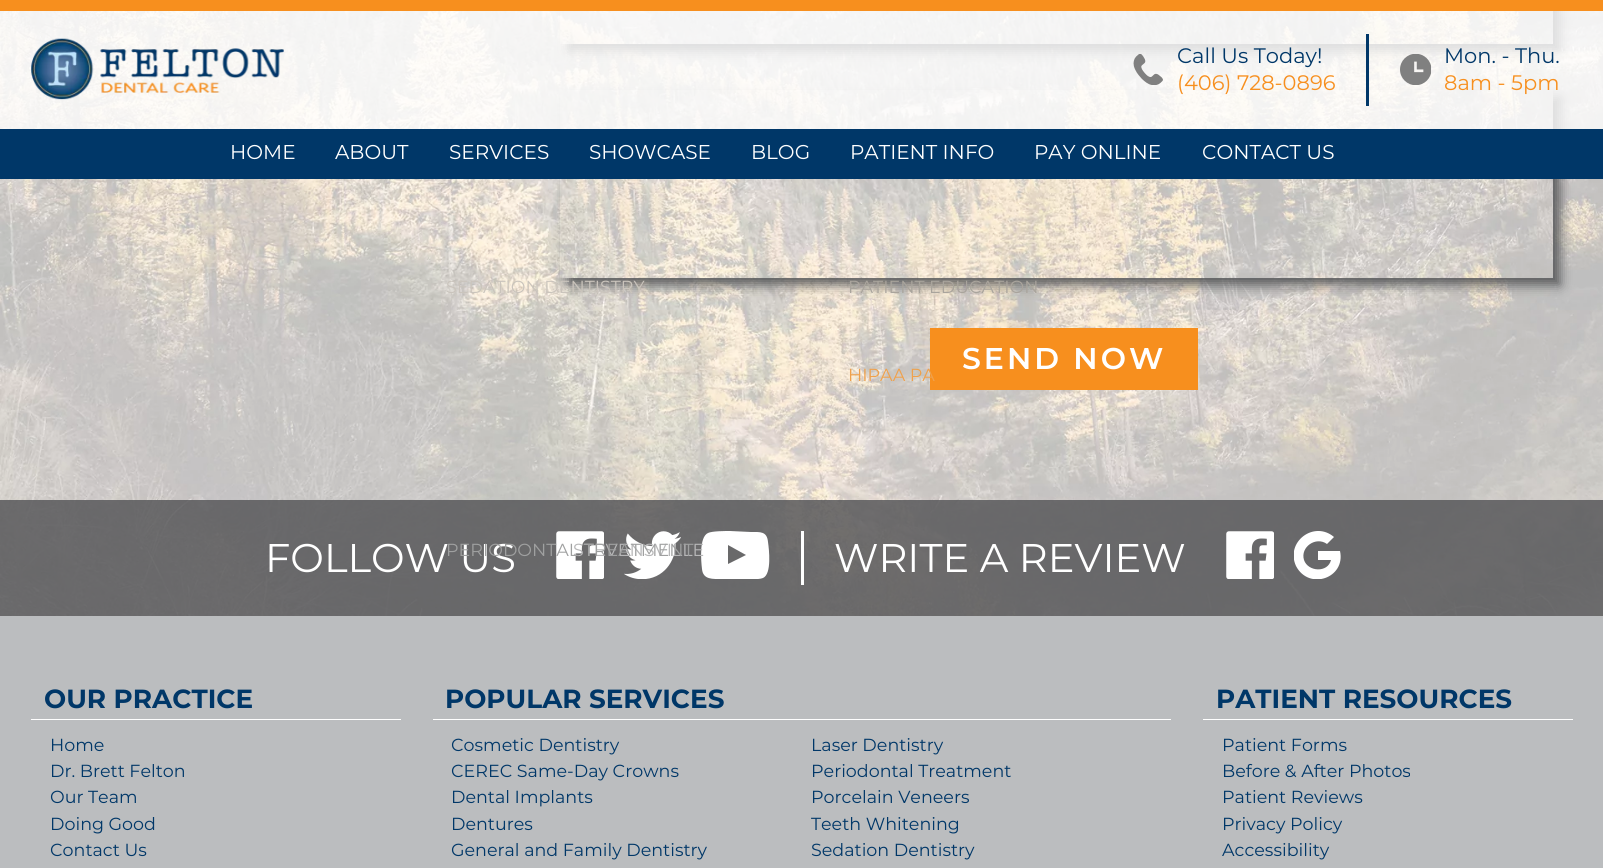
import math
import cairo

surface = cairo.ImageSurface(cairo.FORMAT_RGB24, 1603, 868)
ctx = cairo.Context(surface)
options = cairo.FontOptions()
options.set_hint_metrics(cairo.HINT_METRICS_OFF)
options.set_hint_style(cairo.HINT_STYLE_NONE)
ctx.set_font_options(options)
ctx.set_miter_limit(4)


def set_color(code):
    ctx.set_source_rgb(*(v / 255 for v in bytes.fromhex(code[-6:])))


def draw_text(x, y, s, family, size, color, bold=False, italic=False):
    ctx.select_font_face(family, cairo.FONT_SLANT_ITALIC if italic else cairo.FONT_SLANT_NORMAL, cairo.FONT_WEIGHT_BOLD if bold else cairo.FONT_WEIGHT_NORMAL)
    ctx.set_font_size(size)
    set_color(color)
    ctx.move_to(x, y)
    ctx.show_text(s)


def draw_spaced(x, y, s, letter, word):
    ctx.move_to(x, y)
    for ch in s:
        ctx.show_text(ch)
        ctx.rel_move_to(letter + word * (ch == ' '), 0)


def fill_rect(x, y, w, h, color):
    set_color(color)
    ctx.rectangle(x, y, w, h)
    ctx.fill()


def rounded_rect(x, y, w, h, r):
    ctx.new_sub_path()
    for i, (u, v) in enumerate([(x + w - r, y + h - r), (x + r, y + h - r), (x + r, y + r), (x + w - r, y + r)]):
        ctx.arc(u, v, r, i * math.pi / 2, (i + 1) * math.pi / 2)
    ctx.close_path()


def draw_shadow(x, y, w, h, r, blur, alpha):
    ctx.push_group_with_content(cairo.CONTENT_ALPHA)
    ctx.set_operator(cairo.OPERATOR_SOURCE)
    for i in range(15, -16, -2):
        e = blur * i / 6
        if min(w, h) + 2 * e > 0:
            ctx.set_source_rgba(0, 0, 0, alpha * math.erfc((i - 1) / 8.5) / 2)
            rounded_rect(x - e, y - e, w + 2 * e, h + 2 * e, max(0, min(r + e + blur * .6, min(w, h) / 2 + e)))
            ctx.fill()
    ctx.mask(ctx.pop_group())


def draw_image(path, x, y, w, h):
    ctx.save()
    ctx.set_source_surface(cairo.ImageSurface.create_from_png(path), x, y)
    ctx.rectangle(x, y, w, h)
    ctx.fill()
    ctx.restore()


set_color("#ffffff")
ctx.paint()
draw_image("assets/img4.png", 0, 11, 1603, 605)
ctx.save()
ctx.set_fill_rule(cairo.FILL_RULE_EVEN_ODD)
ctx.new_path()
ctx.move_to(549, 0)
ctx.line_to(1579, 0)
ctx.line_to(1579, 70)
ctx.line_to(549, 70)
ctx.close_path()
ctx.move_to(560, -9)
ctx.line_to(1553, -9)
ctx.line_to(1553, 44)
ctx.line_to(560, 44)
ctx.close_path()
ctx.clip()
set_color("#58595b")
draw_shadow(568, -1, 992, 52, 0, 6, 1)
ctx.restore()
ctx.save()
ctx.set_fill_rule(cairo.FILL_RULE_EVEN_ODD)
ctx.new_path()
ctx.move_to(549, 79)
ctx.line_to(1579, 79)
ctx.line_to(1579, 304)
ctx.line_to(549, 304)
ctx.close_path()
ctx.move_to(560, 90)
ctx.line_to(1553, 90)
ctx.line_to(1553, 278)
ctx.line_to(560, 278)
ctx.close_path()
ctx.clip()
set_color("#58595b")
draw_shadow(568, 98, 992, 187, 0, 6, 1)
ctx.restore()
ctx.set_source_rgba(1, 1, 1, 0.8)
ctx.rectangle(0, 11, 1603, 118)
ctx.fill()
fill_rect(0, 0, 1603, 11, "#f78f1e")
draw_image("assets/img1.png", 31, 38, 253, 62)
draw_image("assets/img2.png", 1133, 54, 30, 31)
draw_text(1177, 63, "Call Us Today!", "Montserrat", 21, "#003768")
draw_text(1177, 90, "(406) 728-0896", "Montserrat", 21, "#f78f1e")
fill_rect(1366, 34, 3, 72, "#003768")
draw_image("assets/img3.png", 1400, 54, 31, 31)
draw_text(1444, 63, "Mon. - Thu.", "Montserrat", 21, "#003768")
draw_text(1444, 90, "8am - 5pm", "Montserrat", 21, "#f78f1e")
fill_rect(0, 129, 1603, 50, "#003768")
draw_text(230, 159, "HOME", "Montserrat", 20, "#ffffff")
draw_text(335, 159, "ABOUT", "Montserrat", 20, "#ffffff")
ctx.set_source_rgba(0.345, 0.349, 0.357, 0.85)
ctx.rectangle(0, 500, 1603, 116)
ctx.fill()
draw_image("assets/img5.png", 556, 531, 48, 48)
draw_image("assets/img6.png", 624, 531, 57, 48)
ctx.save()
ctx.rectangle(701, 531, 69, 48)
ctx.clip()
set_color("#ffffff")
ctx.set_fill_rule(cairo.FILL_RULE_EVEN_ODD)
ctx.new_path()
ctx.move_to(728, 564)
ctx.line_to(728, 545)
ctx.line_to(746, 555)
ctx.close_path()
ctx.move_to(768, 542)
ctx.curve_to(767, 531, 760, 532, 751, 532)
ctx.line_to(730, 531)
ctx.curve_to(725, 531, 712, 531, 708, 533)
ctx.curve_to(699, 537, 701, 561, 702, 569)
ctx.curve_to(703, 580, 713, 579, 722, 579)
ctx.line_to(740, 579)
ctx.curve_to(746, 579, 758, 580, 763, 578)
ctx.curve_to(772, 574, 769, 549, 768, 542)
ctx.close_path()
ctx.fill()
ctx.restore()
draw_text(573, 556, "STEVENSVILLE", "Montserrat", 17.5, "#b7b7b8")
draw_text(449, 159, "SERVICES", "Montserrat", 20, "#ffffff")
draw_text(446, 293, "SEDATION DENTISTRY", "Montserrat", 17.5, "#cac4bc")
draw_text(265, 572, "FOLLOW US", "Montserrat", 40, "#ffffff")
draw_text(446, 556, "PERIODONTAL TREATMENT", "Montserrat", 17.5, "#9fa0a0")
draw_text(589, 159, "SHOWCASE", "Montserrat", 20, "#ffffff")
draw_text(751, 159, "BLOG", "Montserrat", 20, "#ffffff")
draw_text(850, 159, "PATIENT INFO", "Montserrat", 20, "#ffffff")
draw_text(848, 293, "PATIENT EDUCATION", "Montserrat", 17.5, "#a9a49c")
fill_rect(930, 328, 268, 62, "#f78f1e")
draw_text(848, 381, "HIPAA PA", "Montserrat", 17.5, "#efa14c")
draw_text(1034, 159, "PAY ONLINE", "Montserrat", 20, "#ffffff")
draw_text(1202, 159, "CONTACT US", "Montserrat", 20, "#ffffff")
ctx.select_font_face("Montserrat SemiBold")
ctx.set_font_size(30)
draw_spaced(962, 369, "SEND NOW", 3, 0)
fill_rect(801, 531, 3, 54, "#ffffff")
draw_text(834, 572, "WRITE A REVIEW", "Montserrat", 40, "#ffffff")
draw_image("assets/img7.png", 1226, 531, 48, 48)
ctx.save()
ctx.rectangle(1294, 531, 47, 48)
ctx.clip()
ctx.set_fill_rule(cairo.FILL_RULE_EVEN_ODD)
ctx.new_path()
ctx.move_to(1340, 551)
ctx.line_to(1318, 551)
ctx.line_to(1318, 560)
ctx.line_to(1331, 560)
ctx.curve_to(1328, 573, 1308, 572, 1304, 560)
ctx.curve_to(1300, 547, 1316, 536, 1327, 544)
ctx.line_to(1334, 537)
ctx.curve_to(1314, 520, 1285, 542, 1296, 566)
ctx.curve_to(1309, 591, 1346, 578, 1340, 551)
ctx.close_path()
ctx.fill()
ctx.restore()
fill_rect(0, 616, 1603, 252, "#bbbdbf")
fill_rect(31, 719, 370, 1, "#ffffff")
draw_text(44, 708, "OUR PRACTICE", "Montserrat", 26.25, "#003768", bold=True)
draw_text(50, 751, "Home", "Montserrat", 17.5, "#003768")
draw_text(50, 777, "Dr. Brett Felton", "Montserrat", 17.5, "#003768")
draw_text(50, 803, "Our Team", "Montserrat", 17.5, "#003768")
draw_text(50, 830, "Doing Good", "Montserrat", 17.5, "#003768")
draw_text(50, 856, "Contact Us", "Montserrat", 17.5, "#003768")
fill_rect(433, 719, 738, 1, "#ffffff")
draw_text(445, 708, "POPULAR SERVICES", "Montserrat", 26.25, "#003768", bold=True)
draw_text(451, 751, "Cosmetic Dentistry", "Montserrat", 17.5, "#003768")
draw_text(811, 751, "Laser Dentistry", "Montserrat", 17.5, "#003768")
draw_text(451, 777, "CEREC Same-Day Crowns", "Montserrat", 17.5, "#003768")
draw_text(811, 777, "Periodontal Treatment", "Montserrat", 17.5, "#003768")
draw_text(451, 803, "Dental Implants", "Montserrat", 17.5, "#003768")
draw_text(811, 803, "Porcelain Veneers", "Montserrat", 17.5, "#003768")
draw_text(451, 830, "Dentures", "Montserrat", 17.5, "#003768")
draw_text(811, 830, "Teeth Whitening", "Montserrat", 17.5, "#003768")
draw_text(451, 856, "General and Family Dentistry", "Montserrat", 17.5, "#003768")
draw_text(811, 856, "Sedation Dentistry", "Montserrat", 17.5, "#003768")
fill_rect(1203, 719, 370, 1, "#ffffff")
draw_text(1216, 708, "PATIENT RESOURCES", "Montserrat", 26.25, "#003768", bold=True)
draw_text(1222, 751, "Patient Forms", "Montserrat", 17.5, "#003768")
draw_text(1222, 777, "Before & After Photos", "Montserrat", 17.5, "#003768")
draw_text(1222, 803, "Patient Reviews", "Montserrat", 17.5, "#003768")
draw_text(1222, 830, "Privacy Policy", "Montserrat", 17.5, "#003768")
draw_text(1222, 856, "Accessibility", "Montserrat", 17.5, "#003768")
surface.write_to_png("output.png")
